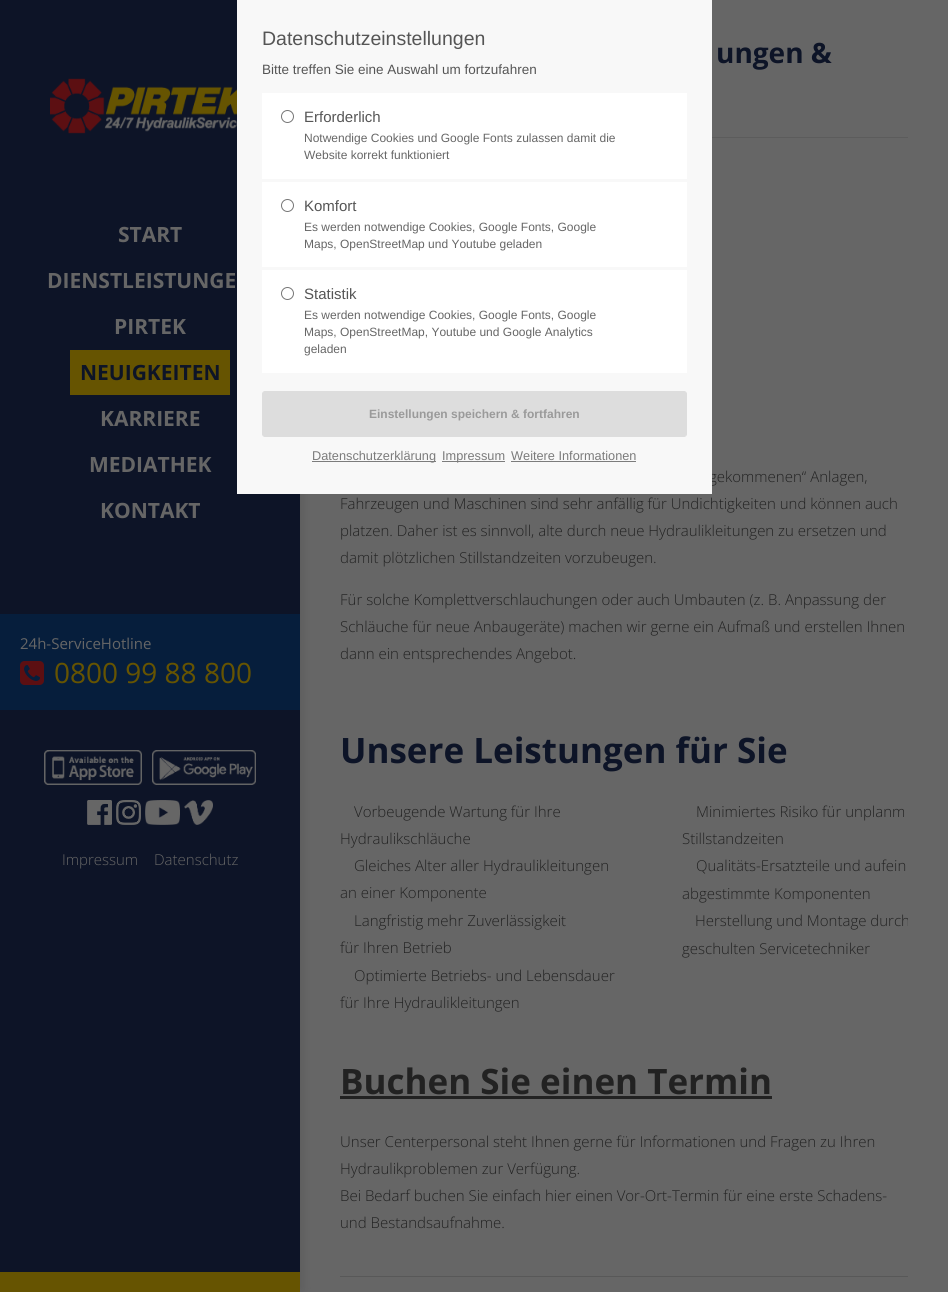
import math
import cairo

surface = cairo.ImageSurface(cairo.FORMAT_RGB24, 948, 1292)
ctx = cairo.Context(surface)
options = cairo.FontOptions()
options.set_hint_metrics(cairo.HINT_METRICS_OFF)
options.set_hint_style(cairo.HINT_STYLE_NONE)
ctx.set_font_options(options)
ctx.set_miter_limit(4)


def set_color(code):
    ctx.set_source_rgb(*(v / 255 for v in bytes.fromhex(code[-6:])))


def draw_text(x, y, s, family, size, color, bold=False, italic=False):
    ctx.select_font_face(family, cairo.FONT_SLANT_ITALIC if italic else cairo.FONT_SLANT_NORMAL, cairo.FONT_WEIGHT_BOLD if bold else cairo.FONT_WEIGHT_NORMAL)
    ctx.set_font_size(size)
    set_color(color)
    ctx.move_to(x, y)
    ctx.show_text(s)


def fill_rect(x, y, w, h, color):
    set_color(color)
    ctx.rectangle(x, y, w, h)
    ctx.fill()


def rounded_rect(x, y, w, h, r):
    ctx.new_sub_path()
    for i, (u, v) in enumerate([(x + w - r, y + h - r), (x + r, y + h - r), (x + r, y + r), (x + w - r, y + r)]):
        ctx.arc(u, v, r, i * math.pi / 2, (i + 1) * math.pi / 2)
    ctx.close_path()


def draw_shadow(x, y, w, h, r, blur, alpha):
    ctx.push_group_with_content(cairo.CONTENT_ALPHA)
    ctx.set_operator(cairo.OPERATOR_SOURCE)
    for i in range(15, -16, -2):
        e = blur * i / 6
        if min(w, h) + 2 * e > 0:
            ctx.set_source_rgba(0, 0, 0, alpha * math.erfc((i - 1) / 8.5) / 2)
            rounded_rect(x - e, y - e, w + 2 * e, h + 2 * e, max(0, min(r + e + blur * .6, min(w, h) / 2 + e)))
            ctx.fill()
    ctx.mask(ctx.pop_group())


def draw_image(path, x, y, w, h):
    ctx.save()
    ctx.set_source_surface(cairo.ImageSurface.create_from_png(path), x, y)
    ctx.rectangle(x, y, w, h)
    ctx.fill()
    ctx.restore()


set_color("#666666")
ctx.paint()
set_color("#000000")
draw_shadow(7, 2, 296, 1288, 0, 5, 0.1)
fill_rect(0, 0, 300, 1272, "#0d1427")
draw_text(709, 482, "gekommenen“ Anlagen,", "Open Sans Light", 15, "#222222")
fill_rect(237, 0, 475, 494, "#f8f8f8")
draw_text(262, 45, "Datenschutzeinstellungen", "Liberation Sans", 19.5, "#555555")
draw_text(262, 74, "Bitte treffen Sie eine Auswahl um fortzufahren", "Liberation Sans", 13.5, "#555555")
fill_rect(262, 93, 425, 86, "#ffffff")
ctx.new_path()
ctx.arc(287.5, 116.5, 6, 0, 2 * math.pi)
set_color("#767676")
ctx.set_line_width(1)
ctx.stroke()
draw_text(304, 122, "Erforderlich", "Liberation Sans", 15, "#555555")
draw_text(304, 142, "Notwendige Cookies und Google Fonts zulassen damit die", "Liberation Sans", 12, "#666666")
draw_text(304, 159, "Website korrekt funktioniert", "Liberation Sans", 12, "#666666")
fill_rect(262, 182, 425, 85, "#ffffff")
ctx.new_path()
ctx.arc(287.5, 205.5, 6, 0, 2 * math.pi)
set_color("#767676")
ctx.stroke()
draw_text(304, 211, "Komfort", "Liberation Sans", 15, "#555555")
draw_text(304, 231, "Es werden notwendige Cookies, Google Fonts, Google", "Liberation Sans", 12, "#666666")
draw_text(304, 248, "Maps, OpenStreetMap und Youtube geladen", "Liberation Sans", 12, "#666666")
fill_rect(262, 270, 425, 103, "#ffffff")
ctx.new_path()
ctx.arc(287.5, 293.5, 6, 0, 2 * math.pi)
set_color("#767676")
ctx.stroke()
draw_text(304, 299, "Statistik", "Liberation Sans", 15, "#555555")
draw_text(304, 319, "Es werden notwendige Cookies, Google Fonts, Google", "Liberation Sans", 12, "#666666")
draw_text(304, 336, "Maps, OpenStreetMap, Youtube und Google Analytics", "Liberation Sans", 12, "#666666")
draw_text(304, 353, "geladen", "Liberation Sans", 12, "#666666")
set_color("#dddddd")
rounded_rect(262.5, 391.5, 424, 45, 2.5)
ctx.fill_preserve()
ctx.stroke()
draw_text(369, 418, "Einstellungen speichern & fortfahren", "Liberation Sans", 12, "#9a9a9a", bold=True)
fill_rect(312, 461, 124, 1, "#7c7c7c")
draw_text(312, 460, "Datenschutzerklärung", "Liberation Sans", 12.75, "#7b7b7b")
fill_rect(442, 461, 63, 1, "#7c7c7c")
draw_text(442, 460, "Impressum", "Liberation Sans", 12.75, "#7b7b7b")
draw_text(511, 460, "Weitere Informationen", "Liberation Sans", 12.75, "#7b7b7b")
fill_rect(511, 461, 125, 1, "#7c7c7c")
fill_rect(0, 1272, 300, 20, "#665401")
draw_image("assets/img1.png", 50, 78, 187, 56)
draw_text(118, 242, "START", "Open Sans", 21, "#666666", bold=True)
draw_text(47, 288, "DIENSTLEISTUNGE", "Open Sans", 21, "#666666", bold=True)
draw_text(114, 334, "PIRTEK", "Open Sans", 21, "#666666", bold=True)
fill_rect(70, 350, 160, 45, "#665401")
draw_text(80, 380, "NEUIGKEITEN", "Open Sans", 21, "#0d1427", bold=True)
draw_text(100, 426, "KARRIERE", "Open Sans", 21, "#666666", bold=True)
draw_text(89, 472, "MEDIATHEK", "Open Sans", 21, "#666666", bold=True)
draw_text(100, 518, "KONTAKT", "Open Sans", 21, "#666666", bold=True)
fill_rect(0, 614, 300, 96, "#061e3c")
draw_text(20, 649, "24h-ServiceHotline", "Open Sans", 15, "#666666")
draw_image("assets/img2.png", 20, 661, 24, 24)
draw_text(54, 683, "0800 99 88 800", "Open Sans", 28, "#665401")
draw_image("assets/img3.png", 44, 750, 98, 35)
draw_image("assets/img4.png", 152, 750, 104, 35)
draw_image("assets/img5.png", 87, 800, 25, 25)
draw_image("assets/img6.png", 116, 800, 25, 25)
draw_image("assets/img7.png", 145, 800, 35, 25)
draw_image("assets/img8.png", 184, 800, 29, 25)
draw_text(62, 865, "Impressum", "Open Sans Light", 15, "#666666")
draw_text(154, 865, "Datenschutz", "Open Sans Light", 15, "#666666")
draw_text(716, 63, "ungen &", "Open Sans", 28, "#0d1427", bold=True)
fill_rect(712, 137, 196, 1, "#5c5c5c")
draw_text(340, 509, "Fahrzeugen und Maschinen sind sehr anfällig für Undichtigkeiten und können auch", "Open Sans Light", 15, "#222222")
draw_text(340, 536, "platzen. Daher ist es sinnvoll, alte durch neue Hydraulikleitungen zu ersetzen und", "Open Sans Light", 15, "#222222")
draw_text(340, 563, "damit plötzlichen Stillstandzeiten vorzubeugen.", "Open Sans Light", 15, "#222222")
draw_text(340, 605, "Für solche Komplettverschlauchungen oder auch Umbauten (z. B. Anpassung der", "Open Sans Light", 15, "#222222")
draw_text(340, 632, "Schläuche für neue Anbaugeräte) machen wir gerne ein Aufmaß und erstellen Ihnen", "Open Sans Light", 15, "#222222")
draw_text(340, 659, "dann ein entsprechendes Angebot.", "Open Sans Light", 15, "#222222")
draw_text(340, 763, "Unsere Leistungen für Sie", "Open Sans", 35, "#0d1427", bold=True)
draw_text(354, 817, "Vorbeugende Wartung für Ihre", "Open Sans Light", 15, "#222222")
draw_text(340, 844, "Hydraulikschläuche", "Open Sans Light", 15, "#222222")
draw_text(696, 817, "Minimiertes Risiko für unplanm", "Open Sans Light", 15, "#222222")
draw_text(682, 844, "Stillstandzeiten", "Open Sans Light", 15, "#222222")
draw_text(354, 871, "Gleiches Alter aller Hydraulikleitungen", "Open Sans Light", 15, "#222222")
draw_text(340, 898, "an einer Komponente", "Open Sans Light", 15, "#222222")
draw_text(696, 871, "Qualitäts-Ersatzteile und aufein", "Open Sans Light", 15, "#222222")
draw_text(682, 899, "abgestimmte Komponenten", "Open Sans Light", 15, "#222222")
draw_text(354, 926, "Langfristig mehr Zuverlässigkeit", "Open Sans Light", 15, "#222222")
draw_text(340, 953, "für Ihren Betrieb", "Open Sans Light", 15, "#222222")
ctx.save()
ctx.rectangle(340, 392, 568, 844)
ctx.clip()
draw_text(695, 926, "Herstellung und Montage durch", "Open Sans Light", 15, "#222222")
ctx.restore()
draw_text(682, 954, "geschulten Servicetechniker", "Open Sans Light", 15, "#222222")
draw_text(354, 981, "Optimierte Betriebs- und Lebensdauer", "Open Sans Light", 15, "#222222")
draw_text(340, 1008, "für Ihre Hydraulikleitungen", "Open Sans Light", 15, "#222222")
draw_text(340, 1094, "Buchen Sie einen Termin", "Open Sans", 35, "#222222", bold=True)
fill_rect(340, 1096, 432, 3, "#222222")
draw_text(340, 1147, "Unser Centerpersonal steht Ihnen gerne für Informationen und Fragen zu Ihren", "Open Sans Light", 15, "#222222")
draw_text(340, 1174, "Hydraulikproblemen zur Verfügung.", "Open Sans Light", 15, "#222222")
draw_text(340, 1201, "Bei Bedarf buchen Sie einfach hier einen Vor-Ort-Termin für eine erste Schadens-", "Open Sans Light", 15, "#222222")
draw_text(340, 1228, "und Bestandsaufnahme.", "Open Sans Light", 15, "#222222")
fill_rect(340, 1276, 568, 1, "#585858")
surface.write_to_png("output.png")
